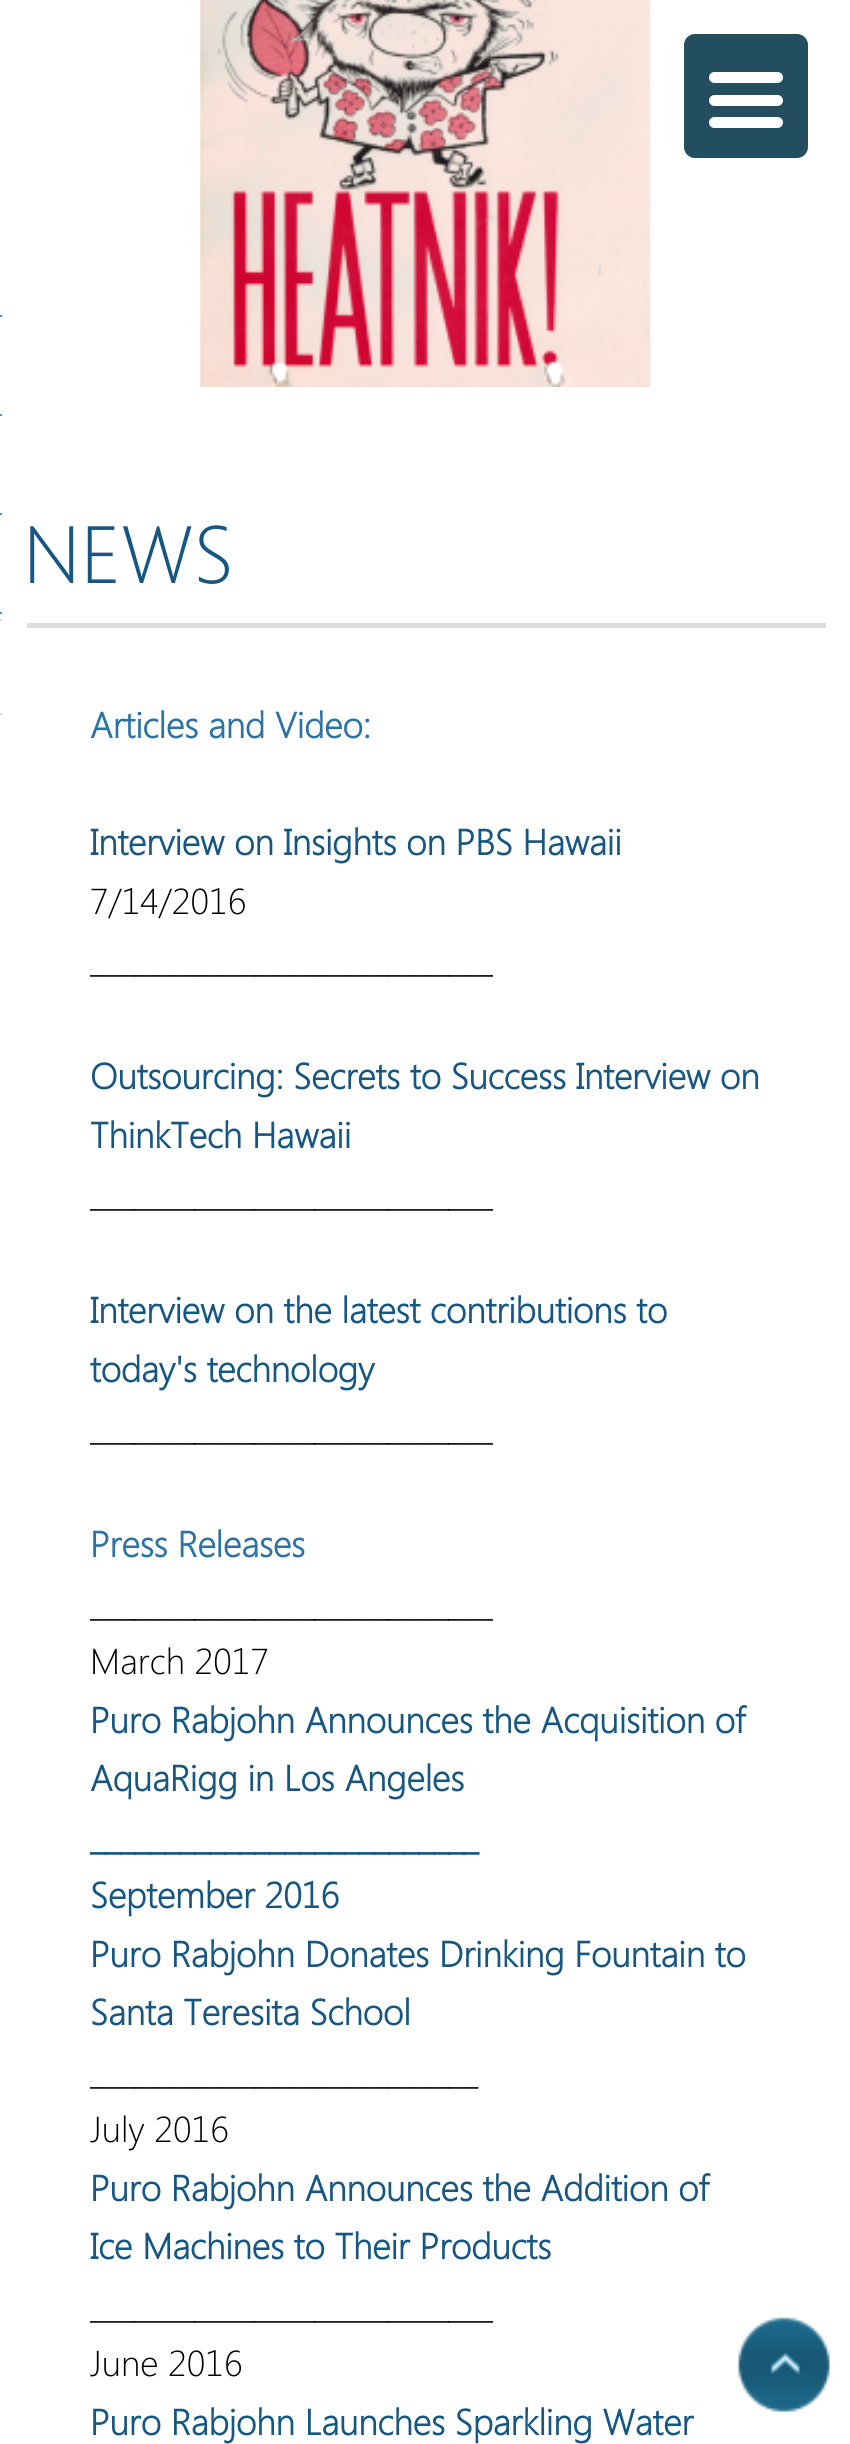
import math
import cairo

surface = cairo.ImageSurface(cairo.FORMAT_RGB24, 850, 2444)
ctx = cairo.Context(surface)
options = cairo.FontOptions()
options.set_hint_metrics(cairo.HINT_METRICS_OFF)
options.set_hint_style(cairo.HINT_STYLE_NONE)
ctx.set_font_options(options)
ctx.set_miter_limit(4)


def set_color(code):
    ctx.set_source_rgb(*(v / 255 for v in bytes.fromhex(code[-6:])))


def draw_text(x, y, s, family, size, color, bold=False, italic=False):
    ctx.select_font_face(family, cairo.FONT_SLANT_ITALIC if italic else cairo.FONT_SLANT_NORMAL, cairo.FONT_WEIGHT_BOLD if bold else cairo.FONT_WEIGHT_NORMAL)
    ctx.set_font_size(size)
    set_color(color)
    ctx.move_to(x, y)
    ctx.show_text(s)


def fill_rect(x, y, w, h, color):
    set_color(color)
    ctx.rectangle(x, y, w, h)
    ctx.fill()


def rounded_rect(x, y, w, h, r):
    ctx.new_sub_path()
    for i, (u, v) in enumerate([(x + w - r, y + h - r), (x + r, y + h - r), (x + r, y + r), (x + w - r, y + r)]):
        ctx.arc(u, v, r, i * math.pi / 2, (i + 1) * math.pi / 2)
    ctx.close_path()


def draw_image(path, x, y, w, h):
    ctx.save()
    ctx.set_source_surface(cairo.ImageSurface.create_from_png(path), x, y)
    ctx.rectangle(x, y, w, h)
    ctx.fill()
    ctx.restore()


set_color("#ffffff")
ctx.paint()
set_color("#224e60")
rounded_rect(684, 34, 124, 124, 11)
ctx.fill()
set_color("#ffffff")
rounded_rect(709, 95, 74, 11, 5.5)
ctx.fill()
rounded_rect(709, 72, 74, 11, 5.5)
ctx.fill()
rounded_rect(709, 117, 74, 11, 5.5)
ctx.fill()
fill_rect(0, 315, 2, 2, "#4796ce")
fill_rect(0, 414, 2, 2, "#4796ce")
fill_rect(0, 513, 2, 2, "#4796ce")
fill_rect(0, 612, 2, 2, "#4796ce")
fill_rect(27, 623, 799, 5, "#dddddd")
ctx.save()
ctx.rectangle(0, 0, 2, 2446)
ctx.clip()
rounded_rect(-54, 615, 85, 104, 52)
set_color("#dadada")
ctx.stroke()
ctx.restore()
draw_image("assets/img1.png", 200, 0, 451, 387)
draw_text(23, 583, "NEWS", "Segoe UI Light", 81, "#165682")
draw_text(90, 738, "Articles and Video:", "Segoe UI", 36, "#2c72a3", bold=True)
draw_text(90, 855, "Interview on Insights on PBS Hawaii", "Segoe UI", 36, "#165682", bold=True)
draw_text(90, 914, "7/14/2016", "Segoe UI Light", 36, "#000000")
draw_text(90, 972, "___________________________", "Segoe UI Light", 36, "#000000")
draw_text(90, 1089, "Outsourcing: Secrets to Success Interview on", "Segoe UI", 36, "#165682", bold=True)
draw_text(90, 1148, "ThinkTech Hawaii", "Segoe UI", 36, "#165682", bold=True)
draw_text(90, 1206, "___________________________", "Segoe UI Light", 36, "#000000")
draw_text(90, 1323, "Interview on the latest contributions to", "Segoe UI", 36, "#165682", bold=True)
draw_text(90, 1382, "today's technology", "Segoe UI", 36, "#165682", bold=True)
draw_text(90, 1440, "___________________________", "Segoe UI Light", 36, "#000000")
draw_text(90, 1557, "Press Releases", "Segoe UI", 36, "#2c72a3", bold=True)
draw_text(90, 1616, "___________________________", "Segoe UI Light", 36, "#000000")
draw_text(90, 1674, "March 2017", "Segoe UI Light", 36, "#000000")
draw_text(90, 1733, "Puro Rabjohn Announces the Acquisition of", "Segoe UI", 36, "#165682", bold=True)
draw_text(90, 1791, "AquaRigg in Los Angeles", "Segoe UI", 36, "#165682", bold=True)
draw_text(90, 1850, "__________________________", "Segoe UI", 36, "#165682", bold=True)
draw_text(90, 1908, "September 2016", "Segoe UI", 36, "#165682", bold=True)
draw_text(90, 1967, "Puro Rabjohn Donates Drinking Fountain to", "Segoe UI", 36, "#165682", bold=True)
draw_text(90, 2025, "Santa Teresita School", "Segoe UI", 36, "#165682", bold=True)
draw_text(90, 2084, "__________________________", "Segoe UI Light", 36, "#000000")
draw_text(90, 2142, "July 2016", "Segoe UI Light", 36, "#000000")
draw_text(90, 2201, "Puro Rabjohn Announces the Addition of", "Segoe UI", 36, "#165682", bold=True)
draw_text(90, 2259, "Ice Machines to Their Products", "Segoe UI", 36, "#165682", bold=True)
draw_text(90, 2318, "___________________________", "Segoe UI Light", 36, "#000000")
draw_text(90, 2376, "June 2016", "Segoe UI Light", 36, "#000000")
draw_text(90, 2435, "Puro Rabjohn Launches Sparkling Water", "Segoe UI", 36, "#165682", bold=True)
draw_image("assets/img2.png", 738, 2317, 92, 95)
surface.write_to_png("output.png")
